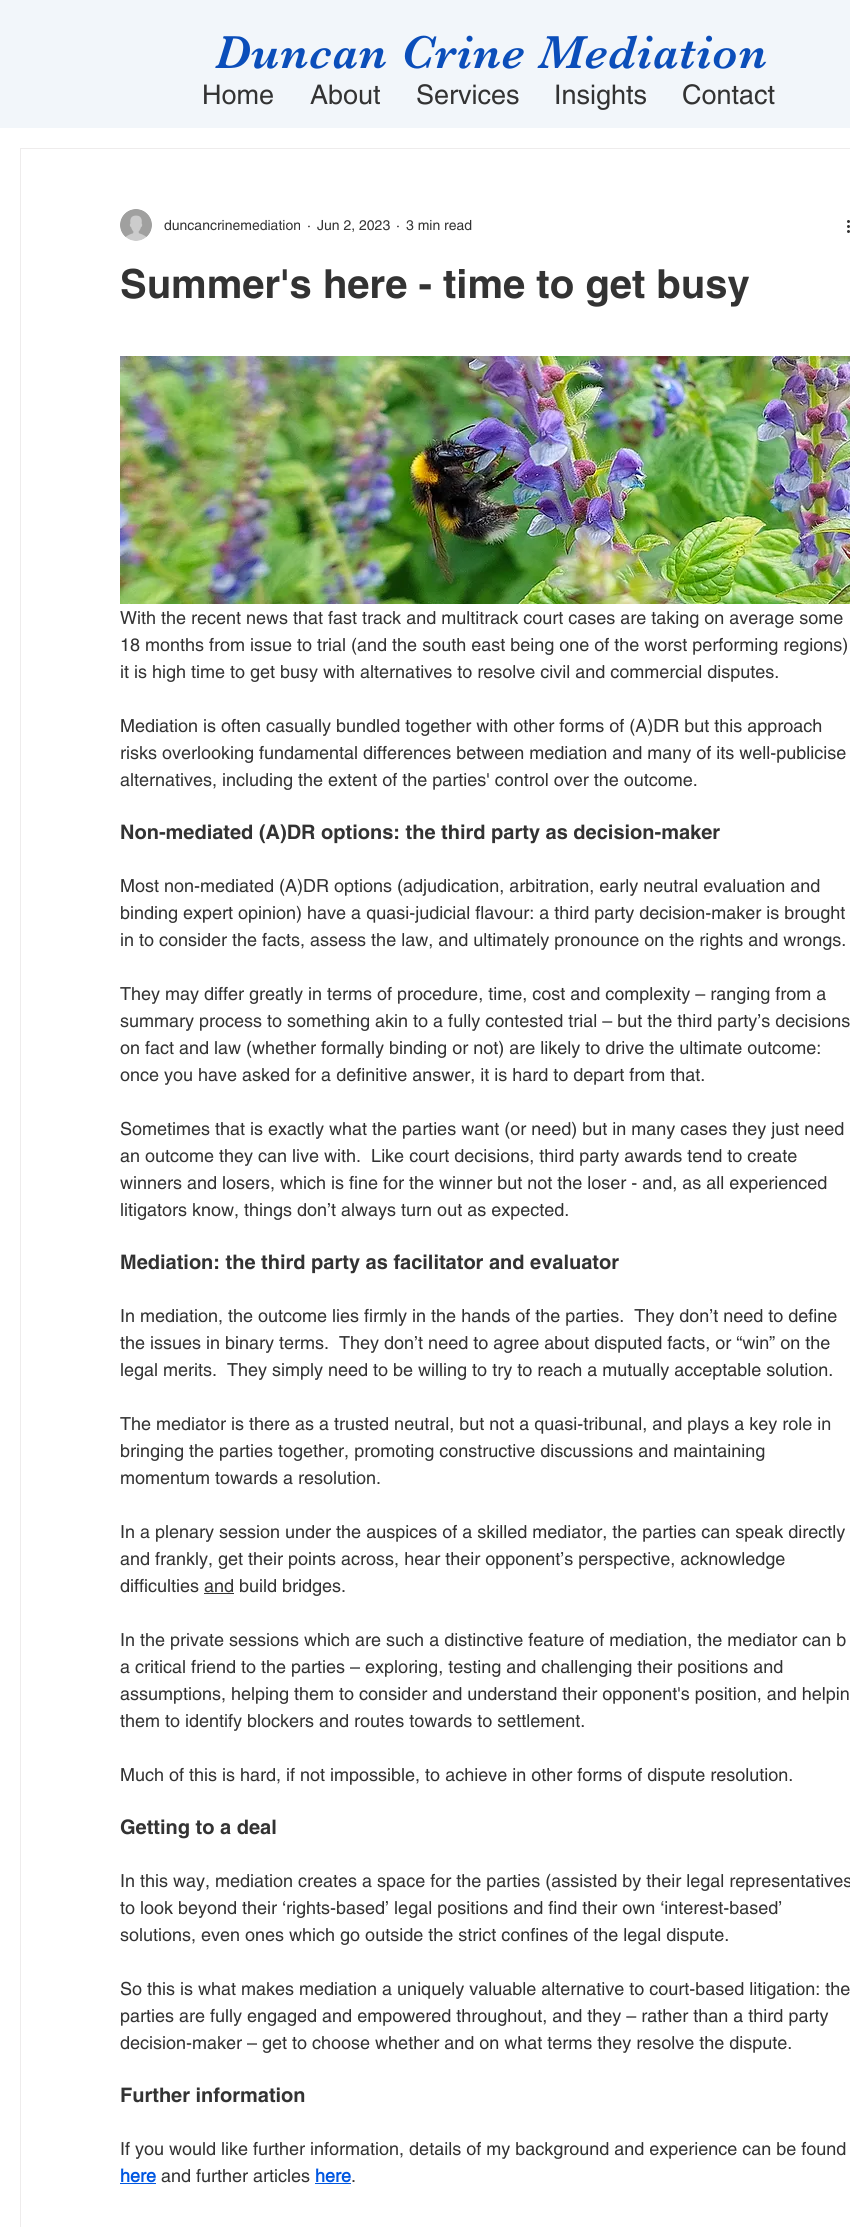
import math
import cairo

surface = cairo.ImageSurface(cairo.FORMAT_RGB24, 850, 2227)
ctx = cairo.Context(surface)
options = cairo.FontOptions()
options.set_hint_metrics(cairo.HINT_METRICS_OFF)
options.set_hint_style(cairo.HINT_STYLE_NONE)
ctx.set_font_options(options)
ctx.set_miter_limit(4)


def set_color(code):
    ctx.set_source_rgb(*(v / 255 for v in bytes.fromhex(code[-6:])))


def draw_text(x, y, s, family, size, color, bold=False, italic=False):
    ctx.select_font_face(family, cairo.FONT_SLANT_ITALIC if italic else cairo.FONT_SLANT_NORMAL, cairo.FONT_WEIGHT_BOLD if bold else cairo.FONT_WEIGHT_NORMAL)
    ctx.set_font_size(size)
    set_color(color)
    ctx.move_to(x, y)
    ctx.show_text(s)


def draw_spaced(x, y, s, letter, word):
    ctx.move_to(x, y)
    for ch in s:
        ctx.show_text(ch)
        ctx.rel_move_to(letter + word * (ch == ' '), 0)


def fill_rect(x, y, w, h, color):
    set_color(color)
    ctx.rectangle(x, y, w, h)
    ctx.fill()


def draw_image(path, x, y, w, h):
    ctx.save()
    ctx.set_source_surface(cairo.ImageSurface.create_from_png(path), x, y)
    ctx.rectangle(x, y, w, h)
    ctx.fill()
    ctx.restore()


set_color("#ffffff")
ctx.paint()
fill_rect(0, 0, 850, 128, "#f2f6fa")
ctx.select_font_face("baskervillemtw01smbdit")
ctx.set_font_size(48)
set_color("#0b4eba")
draw_spaced(215, 68, "Duncan Crine Mediation", 1, 0)
draw_text(202, 104, "Home", "helvetica", 27, "#333333")
draw_text(310, 104, "About", "helvetica", 27, "#333333")
draw_text(416, 104, "Services", "helvetica", 27, "#333333")
draw_text(554, 104, "Insights", "helvetica", 27, "#333333")
draw_text(682, 104, "Contact", "helvetica", 27, "#333333")
ctx.rectangle(20.5, 148.5, 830, 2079)
set_color("#eeecec")
ctx.set_line_width(1)
ctx.stroke()
draw_image("assets/img1.png", 120, 209, 32, 32)
draw_text(164, 230, "duncancrinemediation", "helvetica", 14, "#333333")
draw_text(307, 230, "·", "helvetica", 14, "#333333")
draw_text(317, 230, "Jun 2, 2023", "helvetica", 14, "#333333")
draw_text(396, 230, "·", "helvetica", 14, "#333333")
draw_text(406, 230, "3 min read", "helvetica", 14, "#333333")
draw_image("assets/img2.png", 847, 220, 3, 13)
draw_text(120, 298, "Summer's here - time to get busy", "helvetica", 40, "#333333", bold=True)
draw_image("assets/img3.png", 120, 356, 730, 248)
draw_text(120, 624, "With the recent news that fast track and multitrack court cases are taking on average some", "helvetica", 18, "#333333")
draw_text(120, 651, "18 months from issue to trial (and the south east being one of the worst performing regions)", "helvetica", 18, "#333333")
draw_text(120, 678, "it is high time to get busy with alternatives to resolve civil and commercial disputes.", "helvetica", 18, "#333333")
draw_text(120, 732, "Mediation is often casually bundled together with other forms of (A)DR but this approach", "helvetica", 18, "#333333")
draw_text(120, 759, "risks overlooking fundamental differences between mediation and many of its well-publicise", "helvetica", 18, "#333333")
draw_text(120, 786, "alternatives, including the extent of the parties' control over the outcome.", "helvetica", 18, "#333333")
draw_text(120, 839, "Non-mediated (A)DR options: the third party as decision-maker", "helvetica", 20, "#333333", bold=True)
draw_text(120, 892, "Most non-mediated (A)DR options (adjudication, arbitration, early neutral evaluation and", "helvetica", 18, "#333333")
draw_text(120, 919, "binding expert opinion) have a quasi-judicial flavour: a third party decision-maker is brought", "helvetica", 18, "#333333")
draw_text(120, 946, "in to consider the facts, assess the law, and ultimately pronounce on the rights and wrongs.", "helvetica", 18, "#333333")
draw_text(120, 1000, "They may differ greatly in terms of procedure, time, cost and complexity – ranging from a", "helvetica", 18, "#333333")
draw_text(120, 1027, "summary process to something akin to a fully contested trial – but the third party’s decisions", "helvetica", 18, "#333333")
draw_text(120, 1054, "on fact and law (whether formally binding or not) are likely to drive the ultimate outcome:", "helvetica", 18, "#333333")
draw_text(120, 1081, "once you have asked for a definitive answer, it is hard to depart from that.", "helvetica", 18, "#333333")
draw_text(120, 1135, "Sometimes that is exactly what the parties want (or need) but in many cases they just need", "helvetica", 18, "#333333")
draw_text(120, 1162, "an outcome they can live with.  Like court decisions, third party awards tend to create", "helvetica", 18, "#333333")
draw_text(120, 1189, "winners and losers, which is fine for the winner but not the loser - and, as all experienced", "helvetica", 18, "#333333")
draw_text(120, 1216, "litigators know, things don’t always turn out as expected.", "helvetica", 18, "#333333")
draw_text(120, 1269, "Mediation: the third party as facilitator and evaluator", "helvetica", 20, "#333333", bold=True)
draw_text(120, 1322, "In mediation, the outcome lies firmly in the hands of the parties.  They don’t need to define", "helvetica", 18, "#333333")
draw_text(120, 1349, "the issues in binary terms.  They don’t need to agree about disputed facts, or “win” on the", "helvetica", 18, "#333333")
draw_text(120, 1376, "legal merits.  They simply need to be willing to try to reach a mutually acceptable solution.", "helvetica", 18, "#333333")
draw_text(120, 1430, "The mediator is there as a trusted neutral, but not a quasi-tribunal, and plays a key role in", "helvetica", 18, "#333333")
draw_text(120, 1457, "bringing the parties together, promoting constructive discussions and maintaining", "helvetica", 18, "#333333")
draw_text(120, 1484, "momentum towards a resolution.", "helvetica", 18, "#333333")
draw_text(120, 1538, "In a plenary session under the auspices of a skilled mediator, the parties can speak directly", "helvetica", 18, "#333333")
draw_text(120, 1565, "and frankly, get their points across, hear their opponent’s perspective, acknowledge", "helvetica", 18, "#333333")
draw_text(120, 1592, "difficulties and build bridges.", "helvetica", 18, "#333333")
fill_rect(204, 1593, 30, 1, "#333333")
draw_text(120, 1646, "In the private sessions which are such a distinctive feature of mediation, the mediator can b", "helvetica", 18, "#333333")
draw_text(120, 1673, "a critical friend to the parties – exploring, testing and challenging their positions and", "helvetica", 18, "#333333")
draw_text(120, 1700, "assumptions, helping them to consider and understand their opponent's position, and helpin", "helvetica", 18, "#333333")
draw_text(120, 1727, "them to identify blockers and routes towards to settlement.", "helvetica", 18, "#333333")
draw_text(120, 1781, "Much of this is hard, if not impossible, to achieve in other forms of dispute resolution.", "helvetica", 18, "#333333")
draw_text(120, 1834, "Getting to a deal", "helvetica", 20, "#333333", bold=True)
draw_text(120, 1887, "In this way, mediation creates a space for the parties (assisted by their legal representatives", "helvetica", 18, "#333333")
draw_text(120, 1914, "to look beyond their ‘rights-based’ legal positions and find their own ‘interest-based’", "helvetica", 18, "#333333")
draw_text(120, 1941, "solutions, even ones which go outside the strict confines of the legal dispute.", "helvetica", 18, "#333333")
draw_text(120, 1995, "So this is what makes mediation a uniquely valuable alternative to court-based litigation: the", "helvetica", 18, "#333333")
draw_text(120, 2022, "parties are fully engaged and empowered throughout, and they – rather than a third party", "helvetica", 18, "#333333")
draw_text(120, 2049, "decision-maker – get to choose whether and on what terms they resolve the dispute.", "helvetica", 18, "#333333")
draw_text(120, 2102, "Further information", "helvetica", 20, "#333333", bold=True)
draw_text(120, 2155, "If you would like further information, details of my background and experience can be found", "helvetica", 18, "#333333")
draw_text(120, 2182, "here", "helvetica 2", 18, "#0057e1", bold=True)
fill_rect(120, 2183, 36, 1, "#0057e1")
draw_text(161, 2182, "and further articles", "helvetica", 18, "#333333")
draw_text(315, 2182, "here", "helvetica 2", 18, "#0057e1", bold=True)
fill_rect(315, 2183, 36, 1, "#0057e1")
draw_text(351, 2182, ".", "helvetica", 18, "#333333")
surface.write_to_png("output.png")
